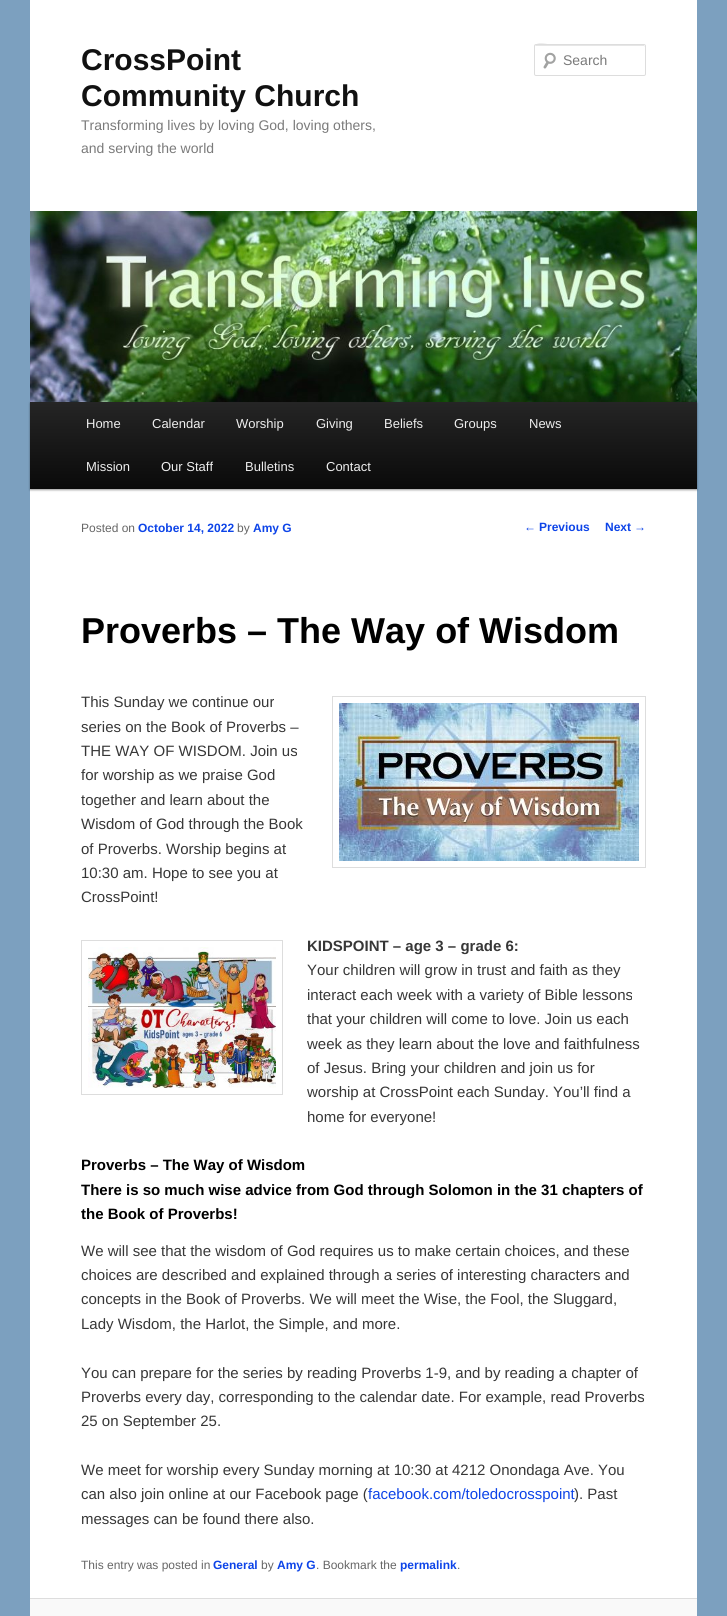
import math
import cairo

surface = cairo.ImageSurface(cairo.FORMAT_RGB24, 727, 1616)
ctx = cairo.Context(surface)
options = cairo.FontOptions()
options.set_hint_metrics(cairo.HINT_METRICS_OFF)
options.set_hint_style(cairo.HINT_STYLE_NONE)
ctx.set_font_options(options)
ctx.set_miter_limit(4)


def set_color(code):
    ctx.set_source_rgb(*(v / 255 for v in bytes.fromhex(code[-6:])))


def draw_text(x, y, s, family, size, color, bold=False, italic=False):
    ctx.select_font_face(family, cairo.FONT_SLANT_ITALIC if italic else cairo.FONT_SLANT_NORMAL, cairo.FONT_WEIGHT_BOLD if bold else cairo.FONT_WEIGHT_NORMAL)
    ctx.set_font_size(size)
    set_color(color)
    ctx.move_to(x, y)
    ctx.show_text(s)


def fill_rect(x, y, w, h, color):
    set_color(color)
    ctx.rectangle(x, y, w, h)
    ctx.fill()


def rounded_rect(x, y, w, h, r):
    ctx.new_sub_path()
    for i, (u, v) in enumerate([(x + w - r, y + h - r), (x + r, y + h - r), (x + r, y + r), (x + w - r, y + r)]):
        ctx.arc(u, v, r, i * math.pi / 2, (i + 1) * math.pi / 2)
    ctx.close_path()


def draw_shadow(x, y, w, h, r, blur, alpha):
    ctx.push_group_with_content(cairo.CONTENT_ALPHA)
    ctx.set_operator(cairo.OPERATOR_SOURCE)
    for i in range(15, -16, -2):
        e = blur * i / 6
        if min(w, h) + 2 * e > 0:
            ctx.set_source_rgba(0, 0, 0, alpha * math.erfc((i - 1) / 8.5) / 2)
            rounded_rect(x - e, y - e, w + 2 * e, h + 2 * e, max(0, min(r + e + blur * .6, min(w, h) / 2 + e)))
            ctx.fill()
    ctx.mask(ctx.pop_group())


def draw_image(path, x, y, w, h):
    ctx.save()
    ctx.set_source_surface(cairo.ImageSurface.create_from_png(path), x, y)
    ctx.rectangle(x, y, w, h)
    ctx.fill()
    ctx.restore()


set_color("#7ca0bf")
ctx.paint()
fill_rect(30, 0, 667, 1598, "#ffffff")
draw_text(81, 70, "CrossPoint", "Liberation Sans", 30, "#111111", bold=True)
draw_text(81, 106, "Community Church", "Liberation Sans", 30, "#111111", bold=True)
draw_text(81, 130, "Transforming lives by loving God, loving others,", "Liberation Sans", 14, "#7a7a7a")
draw_text(81, 153, "and serving the world", "Liberation Sans", 14, "#7a7a7a")
draw_image("assets/img1.png", 543, 52, 13, 17)
set_color("#e6e6e6")
ctx.new_path()
ctx.move_to(536, 46)
ctx.line_to(645, 46)
ctx.line_to(645, 47)
ctx.line_to(644, 45)
ctx.line_to(554, 45)
ctx.curve_to(550, 45, 535, 40, 535, 47)
ctx.curve_to(535, 46, 535, 46, 536, 46)
ctx.close_path()
ctx.fill()
rounded_rect(534.5, 44.5, 111, 31, 1.5)
set_color("#dddddd")
ctx.set_line_width(1)
ctx.stroke()
draw_text(563, 65, "Search", "Liberation Sans", 14, "#7a7a7a")
set_color("#000000")
draw_shadow(30, 403, 667, 87, 0, 1, 0.4)
draw_image("assets/img2.png", 30, 211, 667, 191)
gradient = cairo.LinearGradient(364, 402, 364, 489)
gradient.add_color_stop_rgba(0, 0.145, 0.145, 0.145, 1)
gradient.add_color_stop_rgba(1, 0.039, 0.039, 0.039, 1)
ctx.set_source(gradient)
ctx.rectangle(30, 402, 667, 87)
ctx.fill()
draw_text(86, 428, "Home", "Liberation Sans", 13, "#eeeeee")
draw_text(152, 428, "Calendar", "Liberation Sans", 13, "#eeeeee")
draw_text(236, 428, "Worship", "Liberation Sans", 13, "#eeeeee")
draw_text(316, 428, "Giving", "Liberation Sans", 13, "#eeeeee")
draw_text(384, 428, "Beliefs", "Liberation Sans", 13, "#eeeeee")
draw_text(454, 428, "Groups", "Liberation Sans", 13, "#eeeeee")
draw_text(529, 428, "News", "Liberation Sans", 13, "#eeeeee")
draw_text(86, 471, "Mission", "Liberation Sans", 13, "#eeeeee")
draw_text(161, 471, "Our Staff", "Liberation Sans", 13, "#eeeeee")
draw_text(245, 471, "Bulletins", "Liberation Sans", 13, "#eeeeee")
draw_text(326, 471, "Contact", "Liberation Sans", 13, "#eeeeee")
draw_text(524, 531, "←", "Liberation Sans", 12, "#0d44e8")
draw_text(539, 531, "Previous", "Liberation Sans", 12, "#0d44e8", bold=True)
draw_text(605, 531, "Next", "Liberation Sans", 12, "#0d44e8", bold=True)
draw_text(634, 531, "→", "Liberation Sans", 12, "#0d44e8")
draw_text(81, 532, "Posted on", "Liberation Sans", 12, "#666666")
draw_text(138, 532, "October 14, 2022", "Liberation Sans", 12, "#0d44e8", bold=True)
draw_text(237, 532, "by", "Liberation Sans", 12, "#666666")
draw_text(253, 532, "Amy G", "Liberation Sans", 12, "#0d44e8", bold=True)
draw_text(81, 643, "Proverbs – The Way of Wisdom", "Liberation Sans", 36, "#000000", bold=True)
draw_text(81, 707, "This Sunday we continue our", "Liberation Sans", 15, "#373737")
ctx.rectangle(332.5, 696.5, 313, 171)
set_color("#dddddd")
ctx.stroke()
draw_image("assets/img3.png", 339, 703, 300, 158)
draw_text(81, 732, "series on the Book of Proverbs –", "Liberation Sans", 15, "#373737")
draw_text(81, 756, "THE WAY OF WISDOM. Join us", "Liberation Sans", 15, "#373737")
draw_text(81, 780, "for worship as we praise God", "Liberation Sans", 15, "#373737")
draw_text(81, 805, "together and learn about the", "Liberation Sans", 15, "#373737")
draw_text(81, 829, "Wisdom of God through the Book", "Liberation Sans", 15, "#373737")
draw_text(81, 854, "of Proverbs. Worship begins at", "Liberation Sans", 15, "#373737")
draw_text(81, 878, "10:30 am. Hope to see you at", "Liberation Sans", 15, "#373737")
draw_text(81, 902, "CrossPoint!", "Liberation Sans", 15, "#373737")
ctx.rectangle(81.5, 940.5, 201, 154)
set_color("#dddddd")
ctx.stroke()
draw_image("assets/img4.png", 88, 947, 188, 141)
draw_text(307, 951, "KIDSPOINT – age 3 – grade 6:", "Liberation Sans", 15, "#373737", bold=True)
draw_text(307, 975, "Your children will grow in trust and faith as they", "Liberation Sans", 15, "#373737")
draw_text(307, 1000, "interact each week with a variety of Bible lessons", "Liberation Sans", 15, "#373737")
draw_text(307, 1024, "that your children will come to love. Join us each", "Liberation Sans", 15, "#373737")
draw_text(307, 1049, "week as they learn about the love and faithfulness", "Liberation Sans", 15, "#373737")
draw_text(307, 1073, "of Jesus. Bring your children and join us for", "Liberation Sans", 15, "#373737")
draw_text(307, 1097, "worship at CrossPoint each Sunday. You’ll find a", "Liberation Sans", 15, "#373737")
draw_text(307, 1122, "home for everyone!", "Liberation Sans", 15, "#373737")
draw_text(81, 1170, "Proverbs – The Way of Wisdom", "Liberation Sans", 15, "#000000", bold=True)
draw_text(81, 1195, "There is so much wise advice from God through Solomon in the 31 chapters of", "Liberation Sans", 15, "#000000", bold=True)
draw_text(81, 1219, "the Book of Proverbs!", "Liberation Sans", 15, "#000000", bold=True)
draw_text(81, 1256, "We will see that the wisdom of God requires us to make certain choices, and these", "Liberation Sans", 15, "#373737")
draw_text(81, 1280, "choices are described and explained through a series of interesting characters and", "Liberation Sans", 15, "#373737")
draw_text(81, 1304, "concepts in the Book of Proverbs. We will meet the Wise, the Fool, the Sluggard,", "Liberation Sans", 15, "#373737")
draw_text(81, 1329, "Lady Wisdom, the Harlot, the Simple, and more.", "Liberation Sans", 15, "#373737")
draw_text(81, 1378, "You can prepare for the series by reading Proverbs 1-9, and by reading a chapter of", "Liberation Sans", 15, "#373737")
draw_text(81, 1402, "Proverbs every day, corresponding to the calendar date. For example, read Proverbs", "Liberation Sans", 15, "#373737")
draw_text(81, 1426, "25 on September 25.", "Liberation Sans", 15, "#373737")
draw_text(81, 1475, "We meet for worship every Sunday morning at 10:30 at 4212 Onondaga Ave. You", "Liberation Sans", 15, "#373737")
draw_text(81, 1499, "can also join online at our Facebook page (", "Liberation Sans", 15, "#373737")
draw_text(368, 1499, "facebook.com/toledocrosspoint", "Liberation Sans", 15, "#0d44e8")
draw_text(574, 1499, "). Past", "Liberation Sans", 15, "#373737")
draw_text(81, 1524, "messages can be found there also.", "Liberation Sans", 15, "#373737")
draw_text(81, 1569, "This entry was posted in", "Liberation Sans", 12, "#666666")
draw_text(213, 1569, "General", "Liberation Sans", 12, "#0d44e8", bold=True)
draw_text(261, 1569, "by", "Liberation Sans", 12, "#666666")
draw_text(277, 1569, "Amy G", "Liberation Sans", 12, "#0d44e8", bold=True)
draw_text(316, 1569, ". Bookmark the", "Liberation Sans", 12, "#666666")
draw_text(400, 1569, "permalink", "Liberation Sans", 12, "#0d44e8", bold=True)
draw_text(457, 1569, ".", "Liberation Sans", 12, "#666666")
fill_rect(30, 1599, 667, 17, "#f9f9f9")
fill_rect(30, 1598, 667, 1, "#dddddd")
surface.write_to_png("output.png")
